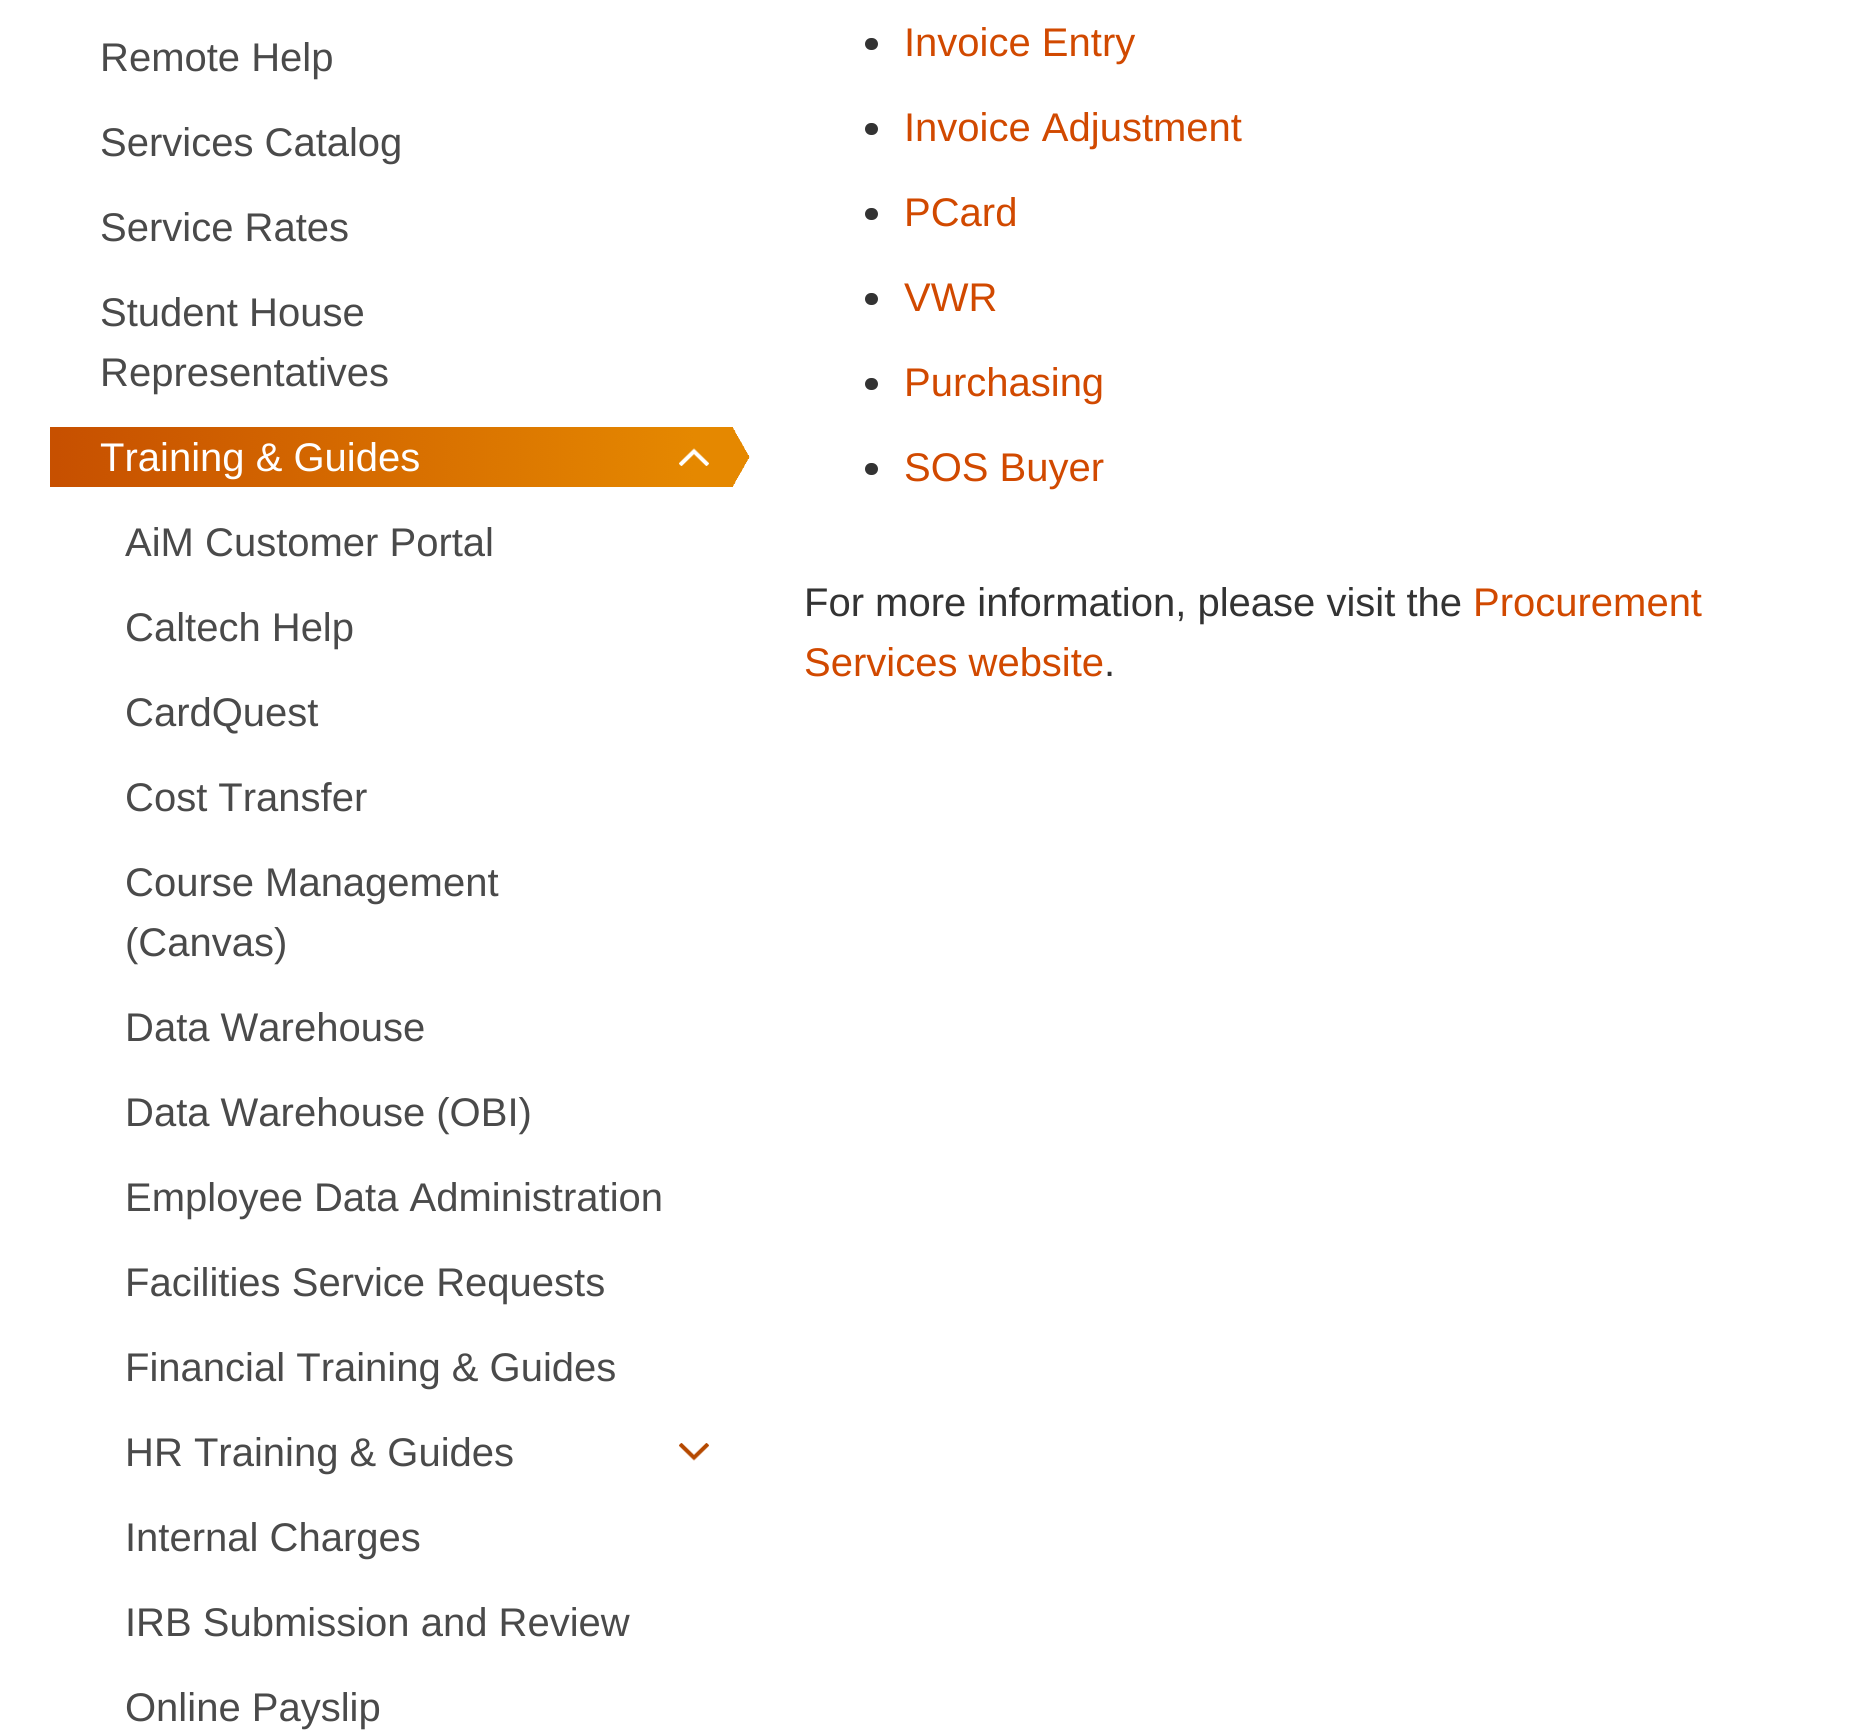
import math
import cairo

surface = cairo.ImageSurface(cairo.FORMAT_RGB24, 1854, 1735)
ctx = cairo.Context(surface)
options = cairo.FontOptions()
options.set_hint_metrics(cairo.HINT_METRICS_OFF)
options.set_hint_style(cairo.HINT_STYLE_NONE)
ctx.set_font_options(options)
ctx.set_miter_limit(4)


def set_color(code):
    ctx.set_source_rgb(*(v / 255 for v in bytes.fromhex(code[-6:])))


def draw_text(x, y, s, family, size, color, bold=False, italic=False):
    ctx.select_font_face(family, cairo.FONT_SLANT_ITALIC if italic else cairo.FONT_SLANT_NORMAL, cairo.FONT_WEIGHT_BOLD if bold else cairo.FONT_WEIGHT_NORMAL)
    ctx.set_font_size(size)
    set_color(color)
    ctx.move_to(x, y)
    ctx.show_text(s)


def rounded_rect(x, y, w, h, r):
    ctx.new_sub_path()
    for i, (u, v) in enumerate([(x + w - r, y + h - r), (x + r, y + h - r), (x + r, y + r), (x + w - r, y + r)]):
        ctx.arc(u, v, r, i * math.pi / 2, (i + 1) * math.pi / 2)
    ctx.close_path()


def draw_image(path, x, y, w, h):
    ctx.save()
    ctx.set_source_surface(cairo.ImageSurface.create_from_png(path), x, y)
    ctx.rectangle(x, y, w, h)
    ctx.fill()
    ctx.restore()


set_color("#ffffff")
ctx.paint()
draw_text(100, 71, "Remote Help", "Liberation Sans", 40, "#4a4a4a")
draw_text(100, 156, "Services Catalog", "Liberation Sans", 40, "#4a4a4a")
draw_text(100, 241, "Service Rates", "Liberation Sans", 40, "#4a4a4a")
draw_text(100, 326, "Student House", "Liberation Sans", 40, "#4a4a4a")
draw_text(100, 386, "Representatives", "Liberation Sans", 40, "#4a4a4a")
draw_image("assets/img1.png", 50, 427, 700, 60)
draw_text(100, 471, "Training & Guides", "Liberation Sans", 40, "#ffffff")
draw_image("assets/img2.png", 679, 448, 30, 18)
draw_text(125, 556, "AiM Customer Portal", "Liberation Sans", 40, "#4a4a4a")
draw_text(125, 641, "Caltech Help", "Liberation Sans", 40, "#4a4a4a")
draw_text(125, 726, "CardQuest", "Liberation Sans", 40, "#4a4a4a")
draw_text(125, 811, "Cost Transfer", "Liberation Sans", 40, "#4a4a4a")
draw_text(125, 896, "Course Management", "Liberation Sans", 40, "#4a4a4a")
draw_text(125, 956, "(Canvas)", "Liberation Sans", 40, "#4a4a4a")
draw_text(125, 1041, "Data Warehouse", "Liberation Sans", 40, "#4a4a4a")
draw_text(125, 1126, "Data Warehouse (OBI)", "Liberation Sans", 40, "#4a4a4a")
draw_text(125, 1211, "Employee Data Administration", "Liberation Sans", 40, "#4a4a4a")
draw_text(125, 1296, "Facilities Service Requests", "Liberation Sans", 40, "#4a4a4a")
draw_text(125, 1381, "Financial Training & Guides", "Liberation Sans", 40, "#4a4a4a")
draw_text(125, 1466, "HR Training & Guides", "Liberation Sans", 40, "#4a4a4a")
draw_image("assets/img3.png", 679, 1443, 30, 18)
draw_text(125, 1551, "Internal Charges", "Liberation Sans", 40, "#4a4a4a")
draw_text(125, 1636, "IRB Submission and Review", "Liberation Sans", 40, "#4a4a4a")
draw_text(125, 1721, "Online Payslip", "Liberation Sans", 40, "#4a4a4a")
set_color("#333333")
rounded_rect(865, 38, 13, 12, 6)
ctx.fill()
draw_text(904, 56, "Invoice Entry", "Liberation Sans", 40, "#d14900")
set_color("#333333")
rounded_rect(865, 123, 13, 12, 6)
ctx.fill()
draw_text(904, 141, "Invoice Adjustment", "Liberation Sans", 40, "#d14900")
set_color("#333333")
rounded_rect(865, 208, 13, 12, 6)
ctx.fill()
draw_text(904, 226, "PCard", "Liberation Sans", 40, "#d14900")
set_color("#333333")
rounded_rect(865, 293, 13, 12, 6)
ctx.fill()
draw_text(904, 311, "VWR", "Liberation Sans", 40, "#d14900")
set_color("#333333")
rounded_rect(865, 378, 13, 12, 6)
ctx.fill()
draw_text(904, 396, "Purchasing", "Liberation Sans", 40, "#d14900")
set_color("#333333")
rounded_rect(865, 463, 13, 12, 6)
ctx.fill()
draw_text(904, 481, "SOS Buyer", "Liberation Sans", 40, "#d14900")
draw_text(804, 616, "For more information, please visit the", "Liberation Sans", 40, "#333333")
draw_text(1473, 616, "Procurement", "Liberation Sans", 40, "#d14900")
draw_text(804, 676, "Services website", "Liberation Sans", 40, "#d14900")
draw_text(1104, 676, ".", "Liberation Sans", 40, "#333333")
surface.write_to_png("output.png")
